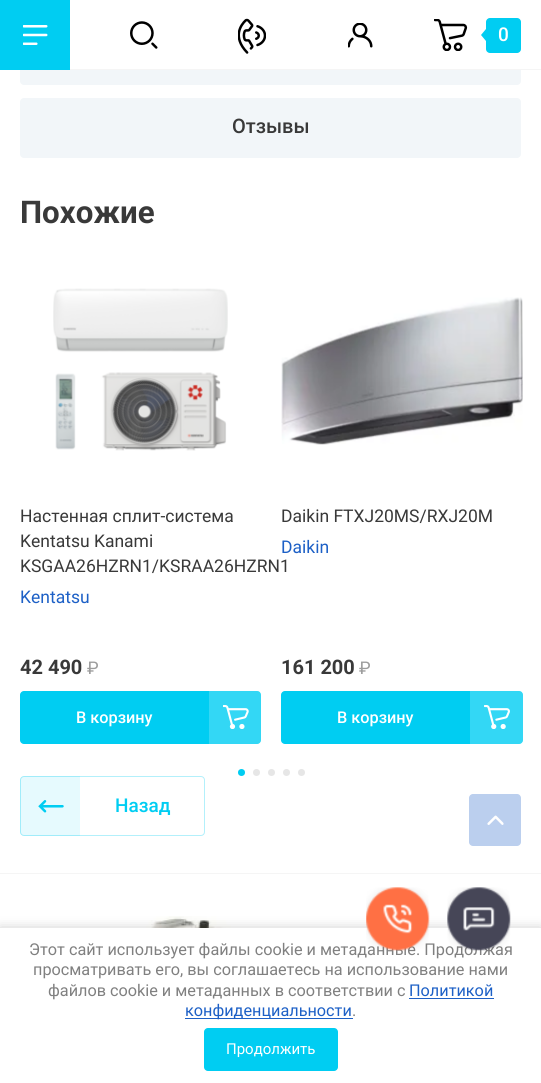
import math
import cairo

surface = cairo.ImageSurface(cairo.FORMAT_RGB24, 541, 1083)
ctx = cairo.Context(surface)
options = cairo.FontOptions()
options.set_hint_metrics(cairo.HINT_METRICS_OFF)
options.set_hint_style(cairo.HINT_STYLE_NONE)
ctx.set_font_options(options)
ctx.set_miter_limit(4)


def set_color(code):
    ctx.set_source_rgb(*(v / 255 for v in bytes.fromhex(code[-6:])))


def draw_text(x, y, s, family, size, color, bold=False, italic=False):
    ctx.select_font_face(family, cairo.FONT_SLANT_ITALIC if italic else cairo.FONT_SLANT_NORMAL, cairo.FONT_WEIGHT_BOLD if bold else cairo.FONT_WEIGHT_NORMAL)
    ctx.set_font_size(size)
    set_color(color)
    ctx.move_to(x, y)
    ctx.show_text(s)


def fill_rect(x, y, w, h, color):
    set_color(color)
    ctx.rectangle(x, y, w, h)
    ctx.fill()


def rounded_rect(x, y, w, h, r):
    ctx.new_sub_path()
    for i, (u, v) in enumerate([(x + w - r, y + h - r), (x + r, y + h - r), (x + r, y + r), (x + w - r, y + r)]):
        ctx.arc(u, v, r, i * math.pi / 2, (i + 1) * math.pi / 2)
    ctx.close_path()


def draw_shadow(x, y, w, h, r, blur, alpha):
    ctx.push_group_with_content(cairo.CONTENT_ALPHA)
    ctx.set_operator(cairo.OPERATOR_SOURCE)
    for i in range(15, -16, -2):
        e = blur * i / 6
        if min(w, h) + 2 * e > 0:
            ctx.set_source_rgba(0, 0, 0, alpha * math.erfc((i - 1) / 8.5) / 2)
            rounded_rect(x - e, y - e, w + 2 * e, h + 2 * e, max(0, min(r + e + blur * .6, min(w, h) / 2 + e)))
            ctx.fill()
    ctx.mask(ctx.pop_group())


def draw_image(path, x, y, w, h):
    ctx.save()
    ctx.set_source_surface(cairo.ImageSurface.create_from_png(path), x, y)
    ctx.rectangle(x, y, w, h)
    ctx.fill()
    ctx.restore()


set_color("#ffffff")
ctx.paint()
set_color("#f2f6f9")
rounded_rect(20, 25, 501, 60, 4)
ctx.fill()
fill_rect(70, 25, 451, 44, "#ffffff")
fill_rect(70, 69, 471, 1, "#f5f5f5")
fill_rect(0, 0, 70, 70, "#00cdf2")
draw_image("assets/img1.png", 23, 25, 25, 20)
draw_image("assets/img2.png", 130, 21, 28, 28)
draw_image("assets/img3.png", 238, 18, 28, 36)
draw_image("assets/img4.png", 348, 23, 25, 25)
draw_image("assets/img5.png", 434, 19, 34, 32)
rounded_rect(486, 18, 35, 35, 4)
ctx.fill()
ctx.new_path()
ctx.move_to(486, 29)
ctx.line_to(486, 41)
ctx.line_to(481, 35)
ctx.close_path()
ctx.fill()
draw_text(498, 41, "0", "Roboto Medium", 19, "#ffffff")
fill_rect(0, 873, 541, 1, "#f5f5f5")
set_color("#f2f6f9")
rounded_rect(20, 98, 501, 60, 4)
ctx.fill()
draw_text(232, 133, "Отзывы", "Roboto Medium", 20, "#393939")
draw_text(20, 223, "Похожие", "Roboto", 31.25, "#393939", bold=True)
draw_image("assets/img6.png", 53, 288, 175, 163)
draw_text(20, 522, "Настенная сплит-система", "Roboto", 17.5, "#393939")
draw_text(20, 547, "Kentatsu Kanami", "Roboto", 17.5, "#393939")
draw_text(20, 572, "KSGAA26HZRN1/KSRAA26HZRN1", "Roboto", 17.5, "#393939")
draw_text(20, 603, "Kentatsu", "Roboto", 17.5, "#1d60c6")
draw_text(20, 674, "42 490", "Roboto", 20, "#393939", bold=True)
draw_text(87, 674, "₽", "Roboto", 17.5, "#9c9c9c")
set_color("#00cdf2")
rounded_rect(20, 691, 241, 53, 4)
ctx.fill()
draw_text(76, 723, "В корзину", "Roboto Medium", 16.25, "#ffffff")
ctx.set_source_rgba(1, 1, 1, 0.2)
ctx.new_path()
ctx.move_to(209, 691)
ctx.line_to(257, 691)
ctx.curve_to(259, 691, 261, 693, 261, 695)
ctx.line_to(261, 740)
ctx.curve_to(261, 742, 259, 744, 257, 744)
ctx.line_to(209, 744)
ctx.close_path()
ctx.fill()
draw_image("assets/img7.png", 223, 705, 26, 24)
draw_image("assets/img8.png", 281, 297, 242, 148)
draw_text(281, 522, "Daikin FTXJ20MS/RXJ20M", "Roboto", 17.5, "#393939")
draw_text(281, 553, "Daikin", "Roboto", 17.5, "#1d60c6")
draw_text(281, 674, "161 200", "Roboto", 20, "#393939", bold=True)
draw_text(359, 674, "₽", "Roboto", 17.5, "#9c9c9c")
set_color("#00cdf2")
rounded_rect(281, 691, 242, 53, 4)
ctx.fill()
draw_text(337, 723, "В корзину", "Roboto Medium", 16.25, "#ffffff")
ctx.set_source_rgba(1, 1, 1, 0.2)
ctx.new_path()
ctx.move_to(470, 691)
ctx.line_to(519, 691)
ctx.curve_to(521, 691, 523, 693, 523, 695)
ctx.line_to(523, 740)
ctx.curve_to(523, 742, 521, 744, 519, 744)
ctx.line_to(470, 744)
ctx.close_path()
ctx.fill()
draw_image("assets/img9.png", 484, 705, 26, 24)
set_color("#00cdf2")
ctx.arc(241.5, 772.5, 3.5, 0, 2 * math.pi)
ctx.fill()
set_color("#e6e6e6")
ctx.arc(256.5, 772.5, 3.5, 0, 2 * math.pi)
ctx.fill()
ctx.arc(271.5, 772.5, 3.5, 0, 2 * math.pi)
ctx.fill()
ctx.arc(286.5, 772.5, 3.5, 0, 2 * math.pi)
ctx.fill()
ctx.arc(301.5, 772.5, 3.5, 0, 2 * math.pi)
ctx.fill()
rounded_rect(20.5, 776.5, 184, 59, 3.5)
set_color("#b3f0fb")
ctx.set_line_width(1)
ctx.stroke()
ctx.set_source_rgba(0, 0.804, 0.949, 0.1)
ctx.new_path()
ctx.move_to(24, 776)
ctx.line_to(80, 776)
ctx.line_to(80, 836)
ctx.line_to(24, 836)
ctx.curve_to(22, 836, 20, 834, 20, 832)
ctx.line_to(20, 780)
ctx.curve_to(20, 778, 22, 776, 24, 776)
ctx.close_path()
ctx.fill()
draw_image("assets/img10.png", 38, 800, 26, 13)
draw_text(115, 812, "Назад", "Roboto Medium", 19, "#00cdf2")
draw_image("assets/img11.png", 99, 916, 132, 12)
set_color("#bbcfee")
rounded_rect(469, 794, 52, 52, 4)
ctx.fill()
draw_image("assets/img12.png", 487, 815, 17, 10)
set_color("#000000")
draw_shadow(0, 929, 541, 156, 0, 6, 0.23)
fill_rect(0, 928, 541, 155, "#ffffff")
draw_text(29, 955, "Этот сайт использует файлы cookie и метаданные. Продолжая", "Roboto", 16.25, "#808080")
draw_image("assets/img13.png", 366, 887, 64, 64)
draw_image("assets/img14.png", 447, 887, 64, 64)
draw_text(33, 975, "просматривать его, вы соглашаетесь на использование нами", "Roboto", 16.25, "#808080")
draw_text(48, 996, "файлов cookie и метаданных в соответствии с", "Roboto", 16.25, "#808080")
draw_text(409, 996, "Политикой", "Roboto", 16.25, "#1d60c6")
fill_rect(409, 998, 85, 1, "#1d60c6")
fill_rect(185, 1018, 168, 1, "#1d60c6")
draw_text(185, 1016, "конфиденциальности", "Roboto", 16.25, "#1d60c6")
draw_text(352, 1016, ".", "Roboto", 16.25, "#808080")
set_color("#00cdf2")
rounded_rect(204, 1028, 134, 43, 4)
ctx.fill()
draw_text(226, 1054, "Продолжить", "Roboto", 15, "#ffffff")
surface.write_to_png("output.png")
